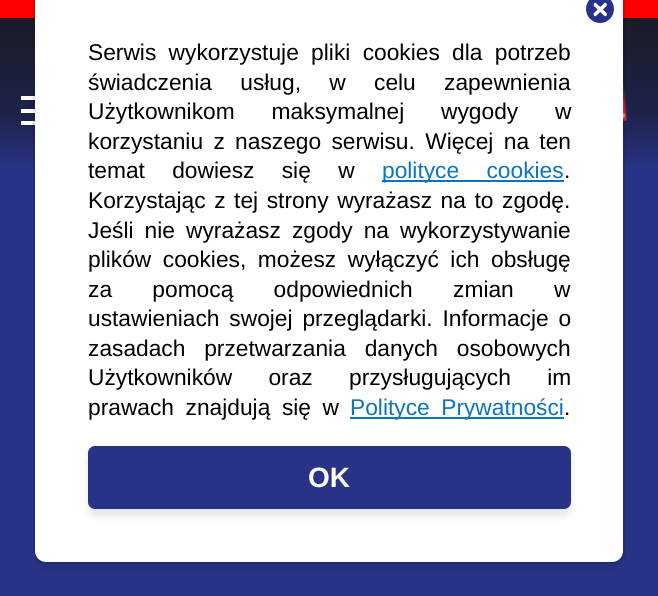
import math
import cairo

surface = cairo.ImageSurface(cairo.FORMAT_RGB24, 658, 596)
ctx = cairo.Context(surface)
options = cairo.FontOptions()
options.set_hint_metrics(cairo.HINT_METRICS_OFF)
options.set_hint_style(cairo.HINT_STYLE_NONE)
ctx.set_font_options(options)
ctx.set_miter_limit(4)


def set_color(code):
    ctx.set_source_rgb(*(v / 255 for v in bytes.fromhex(code[-6:])))


def draw_text(x, y, s, family, size, color, bold=False, italic=False):
    ctx.select_font_face(family, cairo.FONT_SLANT_ITALIC if italic else cairo.FONT_SLANT_NORMAL, cairo.FONT_WEIGHT_BOLD if bold else cairo.FONT_WEIGHT_NORMAL)
    ctx.set_font_size(size)
    set_color(color)
    ctx.move_to(x, y)
    ctx.show_text(s)


def draw_spaced(x, y, s, letter, word):
    ctx.move_to(x, y)
    for ch in s:
        ctx.show_text(ch)
        ctx.rel_move_to(letter + word * (ch == ' '), 0)


def fill_rect(x, y, w, h, color):
    set_color(color)
    ctx.rectangle(x, y, w, h)
    ctx.fill()


def rounded_rect(x, y, w, h, r):
    ctx.new_sub_path()
    for i, (u, v) in enumerate([(x + w - r, y + h - r), (x + r, y + h - r), (x + r, y + r), (x + w - r, y + r)]):
        ctx.arc(u, v, r, i * math.pi / 2, (i + 1) * math.pi / 2)
    ctx.close_path()


def draw_shadow(x, y, w, h, r, blur, alpha):
    ctx.push_group_with_content(cairo.CONTENT_ALPHA)
    ctx.set_operator(cairo.OPERATOR_SOURCE)
    for i in range(15, -16, -2):
        e = blur * i / 6
        if min(w, h) + 2 * e > 0:
            ctx.set_source_rgba(0, 0, 0, alpha * math.erfc((i - 1) / 8.5) / 2)
            rounded_rect(x - e, y - e, w + 2 * e, h + 2 * e, max(0, min(r + e + blur * .6, min(w, h) / 2 + e)))
            ctx.fill()
    ctx.mask(ctx.pop_group())


def draw_image(path, x, y, w, h):
    ctx.save()
    ctx.set_source_surface(cairo.ImageSurface.create_from_png(path), x, y)
    ctx.rectangle(x, y, w, h)
    ctx.fill()
    ctx.restore()


set_color("#283387")
ctx.paint()
gradient = cairo.LinearGradient(329, 0, 329, 189)
gradient.add_color_stop_rgba(0, 0.102, 0.102, 0.122, 1)
gradient.add_color_stop_rgba(0.6, 0.114, 0.133, 0.29, 1)
gradient.add_color_stop_rgba(0.9, 0.157, 0.2, 0.529, 1)
ctx.set_source(gradient)
ctx.rectangle(0, 18, 658, 150)
ctx.fill()
fill_rect(0, 0, 658, 18, "#ff0000")
fill_rect(21, 121, 14, 4, "#fefefe")
fill_rect(21, 109, 14, 4, "#fefefe")
fill_rect(21, 96, 14, 4, "#fefefe")
draw_image("assets/img1.png", 623, 83, 4, 38)
rounded_rect(34, -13, 590, 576, 11)
ctx.set_source_rgba(0, 0, 0, 0.08)
ctx.stroke()
set_color("#000000")
draw_shadow(35, -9, 588, 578, 11, 3.5, 0.1)
set_color("#ffffff")
rounded_rect(35, -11, 588, 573, 11)
ctx.fill()
set_color("#283387")
ctx.arc(600, 9, 14, 0, 2 * math.pi)
ctx.fill()
set_color("#ffffff")
ctx.new_path()
ctx.move_to(594, 13)
ctx.line_to(604, 3.5)
ctx.curve_to(604.5, 2.5, 606, 2.5, 606.5, 3.5)
ctx.curve_to(607, 4, 607, 5, 606.5, 6)
ctx.line_to(596.5, 15.5)
ctx.curve_to(596, 16.5, 594.5, 16.5, 594, 15.5)
ctx.curve_to(593.5, 15, 593.5, 14, 594, 13)
ctx.close_path()
ctx.fill()
ctx.new_path()
ctx.move_to(596.5, 3.5)
ctx.line_to(606.5, 13)
ctx.curve_to(607, 14, 607, 15, 606.5, 15.5)
ctx.curve_to(606, 16.5, 604.5, 16.5, 604, 15.5)
ctx.line_to(594, 6)
ctx.curve_to(593.5, 5, 593.5, 4, 594, 3.5)
ctx.curve_to(594.5, 2.5, 596, 2.5, 596.5, 3.5)
ctx.close_path()
ctx.fill()
ctx.select_font_face("Liberation Sans")
ctx.set_font_size(22.75)
set_color("#000000")
draw_spaced(88, 60, "Serwis wykorzystuje pliki cookies dla potrzeb", 0, 6)
draw_spaced(88, 90, "świadczenia usług, w celu zapewnienia", 0, 22)
draw_spaced(88, 119, "Użytkownikom maksymalnej wygody w", 0, 30.5)
draw_spaced(88, 149, "korzystaniu z naszego serwisu. Więcej na ten", 0, 4)
draw_spaced(88, 178, "temat dowiesz się w", 0, 21)
fill_rect(382, 180, 182, 2, "#0c74bb")
draw_spaced(382, 178, "polityce cookies", 0, 21)
draw_text(564, 178, ".", "Liberation Sans", 22.75, "#000000")
draw_spaced(88, 208, "Korzystając z tej strony wyrażasz na to zgodę.", 0, 2.25)
draw_spaced(88, 238, "Jeśli nie wyrażasz zgody na wykorzystywanie", 0, 4.75)
draw_spaced(88, 267, "plików cookies, możesz wyłączyć ich obsługę", 0, 5.25)
draw_spaced(88, 297, "za pomocą odpowiednich zmian w", 0, 34)
draw_spaced(88, 326, "ustawieniach swojej przeglądarki. Informacje o", 0, 3.5)
draw_spaced(88, 356, "zasadach przetwarzania danych osobowych", 0, 12.5)
draw_spaced(88, 385, "Użytkowników oraz przysługujących im", 0, 30)
draw_spaced(88, 415, "prawach znajdują się w", 0, 5.25)
fill_rect(350, 417, 214, 2, "#0c74bb")
draw_spaced(350, 415, "Polityce Prywatności", 0, 5.25)
draw_text(564, 415, ".", "Liberation Sans", 22.75, "#000000")
set_color("#000000")
draw_shadow(88, 453, 483, 63, 7, 3.5, 0.1)
set_color("#283387")
rounded_rect(88, 446, 483, 63, 7)
ctx.fill()
draw_text(308, 487, "OK", "Liberation Sans", 28, "#ffffff", bold=True)
surface.write_to_png("output.png")
